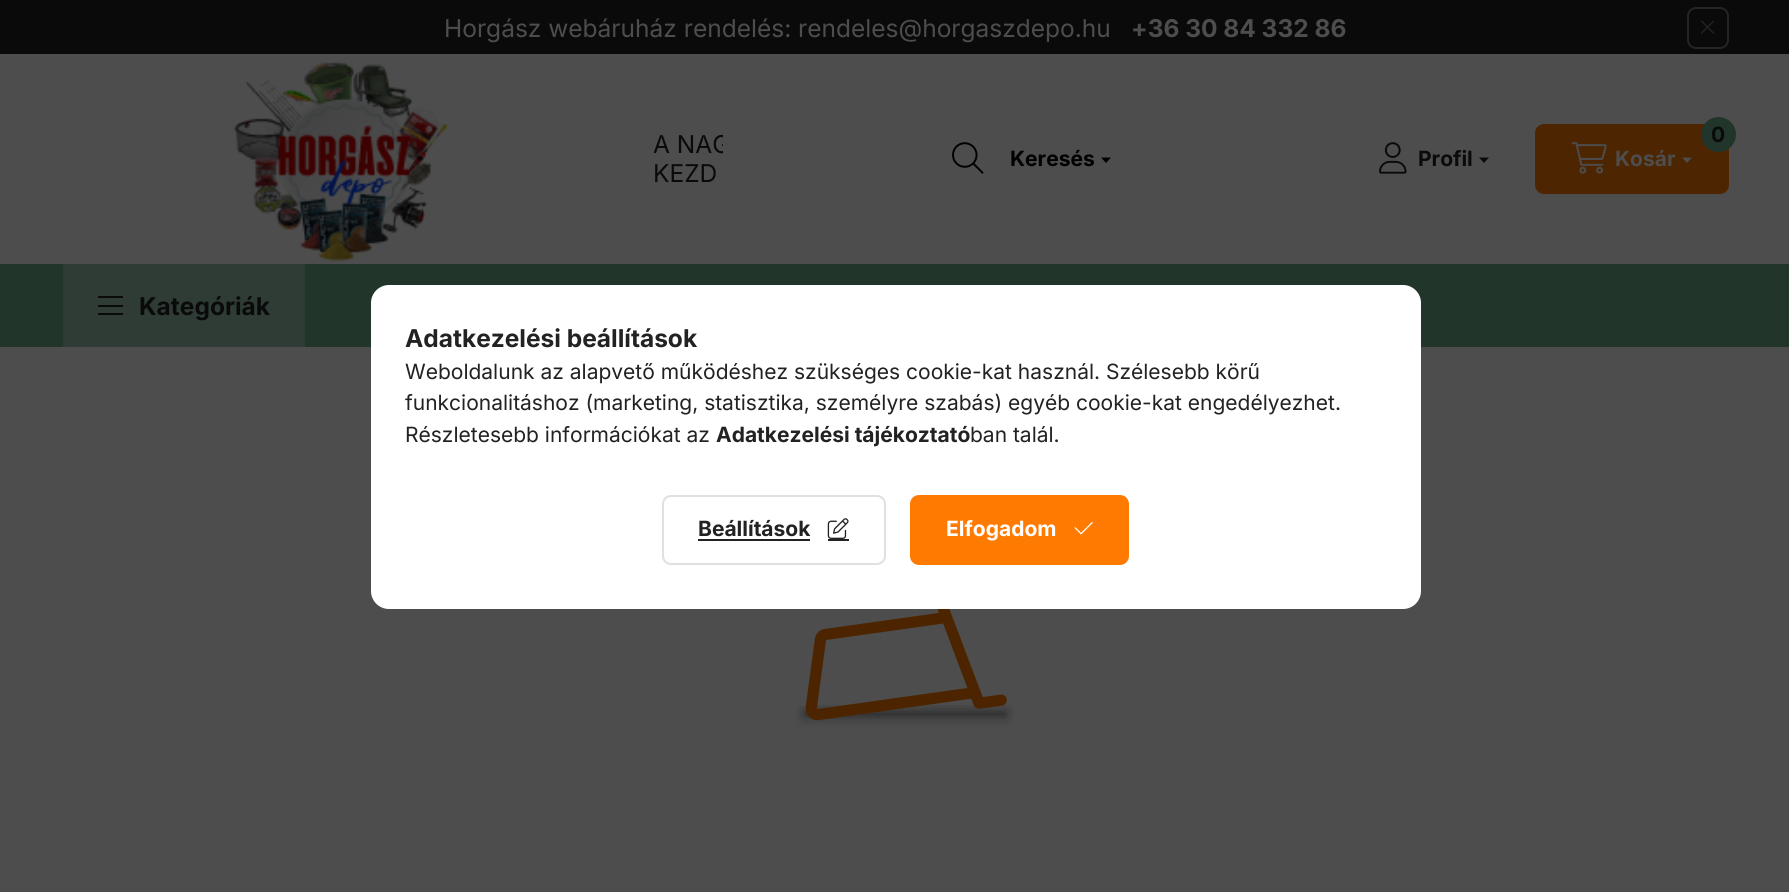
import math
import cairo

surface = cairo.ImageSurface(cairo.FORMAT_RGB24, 1789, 892)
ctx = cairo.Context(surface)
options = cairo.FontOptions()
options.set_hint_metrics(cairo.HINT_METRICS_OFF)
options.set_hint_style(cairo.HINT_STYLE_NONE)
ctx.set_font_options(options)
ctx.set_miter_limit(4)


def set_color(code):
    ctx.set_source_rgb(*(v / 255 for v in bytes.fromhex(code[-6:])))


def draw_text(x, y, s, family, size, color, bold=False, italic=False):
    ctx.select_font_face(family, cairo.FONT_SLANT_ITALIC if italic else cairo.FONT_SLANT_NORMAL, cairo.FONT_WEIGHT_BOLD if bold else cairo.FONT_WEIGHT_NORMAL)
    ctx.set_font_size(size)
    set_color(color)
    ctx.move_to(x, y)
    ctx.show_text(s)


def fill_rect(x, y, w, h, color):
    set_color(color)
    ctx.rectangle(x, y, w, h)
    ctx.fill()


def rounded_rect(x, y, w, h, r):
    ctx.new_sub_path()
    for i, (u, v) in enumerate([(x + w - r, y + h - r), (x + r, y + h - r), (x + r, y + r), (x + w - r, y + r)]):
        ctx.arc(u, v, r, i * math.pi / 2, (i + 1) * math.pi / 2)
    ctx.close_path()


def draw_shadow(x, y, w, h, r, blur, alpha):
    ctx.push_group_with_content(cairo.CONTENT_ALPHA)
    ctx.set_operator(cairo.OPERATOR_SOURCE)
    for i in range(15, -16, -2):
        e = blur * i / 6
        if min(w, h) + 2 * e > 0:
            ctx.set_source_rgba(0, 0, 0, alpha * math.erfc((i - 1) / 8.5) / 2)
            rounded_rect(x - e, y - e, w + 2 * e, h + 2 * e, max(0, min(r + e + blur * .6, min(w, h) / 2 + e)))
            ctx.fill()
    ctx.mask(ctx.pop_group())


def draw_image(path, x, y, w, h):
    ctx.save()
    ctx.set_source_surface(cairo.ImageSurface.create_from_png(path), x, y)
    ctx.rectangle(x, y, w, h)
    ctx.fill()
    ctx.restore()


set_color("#4d4d4d")
ctx.paint()
fill_rect(0, 0, 1789, 54, "#0a0a0a")
draw_text(444, 37, "Horgász webáruház rendelés: rendeles@horgaszdepo.hu", "Inter", 24.5, "#4d4d4d")
draw_text(1131, 37, "+36 30 84 332 86", "Inter", 24.5, "#4d4d4d", bold=True)
rounded_rect(1688, 8, 40, 40, 8)
set_color("#252525")
ctx.stroke()
draw_image("assets/img1.png", 1701, 20, 13, 14)
draw_image("assets/img2.png", 234, 62, 215, 200)
draw_text(653, 153, "A NAG", "Inter", 24.5, "#0a0a0a")
draw_text(653, 182, "KEZD", "Inter", 24.5, "#0a0a0a")
set_color("#4d4d4d")
rounded_rect(723, 124, 618, 70, 9)
ctx.fill()
draw_image("assets/img3.png", 952, 142, 32, 32)
draw_text(1010, 166, "Keresés", "Inter", 21, "#000000", bold=True)
ctx.new_path()
ctx.move_to(1101, 157.5)
ctx.line_to(1111, 157.5)
ctx.line_to(1106, 163)
ctx.close_path()
ctx.fill()
draw_image("assets/img4.png", 1379, 142, 28, 32)
draw_text(1418, 166, "Profil", "Inter", 21, "#0a0a0a", bold=True)
ctx.new_path()
ctx.move_to(1479, 157.5)
ctx.line_to(1489, 157.5)
ctx.line_to(1484, 163)
ctx.close_path()
ctx.fill()
set_color("#4d2500")
rounded_rect(1535, 124, 194, 70, 9)
ctx.fill()
set_color("#21352b")
ctx.arc(1718.5, 134.5, 17.5, 0, 2 * math.pi)
ctx.fill()
draw_text(1711, 142, "0", "Inter", 21, "#0a0a0a", bold=True)
draw_image("assets/img5.png", 1571, 142, 36, 32)
draw_text(1615, 166, "Kosár", "Inter", 21, "#4d4d4d", bold=True)
ctx.new_path()
ctx.move_to(1682, 157.5)
ctx.line_to(1692, 157.5)
ctx.line_to(1687, 163)
ctx.close_path()
ctx.fill()
fill_rect(0, 264, 1789, 83, "#21352b")
fill_rect(63, 264, 242, 83, "#2e3c35")
fill_rect(98, 296, 25, 2, "#0a0a0a")
fill_rect(98, 305, 25, 2, "#0a0a0a")
fill_rect(98, 313, 25, 2, "#0a0a0a")
draw_text(139, 315, "Kategóriák", "Inter", 24.5, "#0a0a0a", bold=True)
ctx.save()
ctx.rectangle(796, 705, 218, 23)
ctx.clip()
set_color("#262626")
draw_shadow(805, 712, 200, 4, 0, 6, 1)
ctx.restore()
draw_image("assets/img6.png", 805, 609, 202, 112)
set_color("#ffffff")
rounded_rect(371, 285, 1050, 324, 18)
ctx.fill()
draw_text(405, 347, "Adatkezelési beállítások", "Inter", 24.5, "#222222", bold=True)
draw_text(405, 379, "Weboldalunk az alapvető működéshez szükséges cookie-kat használ. Szélesebb körű", "Inter", 21, "#222222")
draw_text(405, 410, "funkcionalitáshoz (marketing, statisztika, személyre szabás) egyéb cookie-kat engedélyezhet.", "Inter", 21, "#222222")
draw_text(405, 442, "Részletesebb információkat az", "Inter", 21, "#222222")
draw_text(716, 442, "Adatkezelési tájékoztató", "Inter", 21, "#222222", bold=True)
draw_text(970, 442, "ban talál.", "Inter", 21, "#222222")
rounded_rect(663, 496, 222, 68, 8)
set_color("#e0e0e0")
ctx.stroke()
draw_text(698, 536, "Beállítások", "Inter", 21, "#222222", bold=True)
fill_rect(698, 539, 112, 2, "#222222")
draw_image("assets/img7.png", 827, 518, 22, 21)
fill_rect(828, 539, 21, 2, "#222222")
set_color("#ff7a00")
rounded_rect(911, 496, 217, 68, 8)
ctx.fill_preserve()
ctx.stroke()
draw_text(946, 536, "Elfogadom", "Inter", 21, "#ffffff", bold=True)
draw_image("assets/img8.png", 1074, 522, 19, 13)
surface.write_to_png("output.png")
